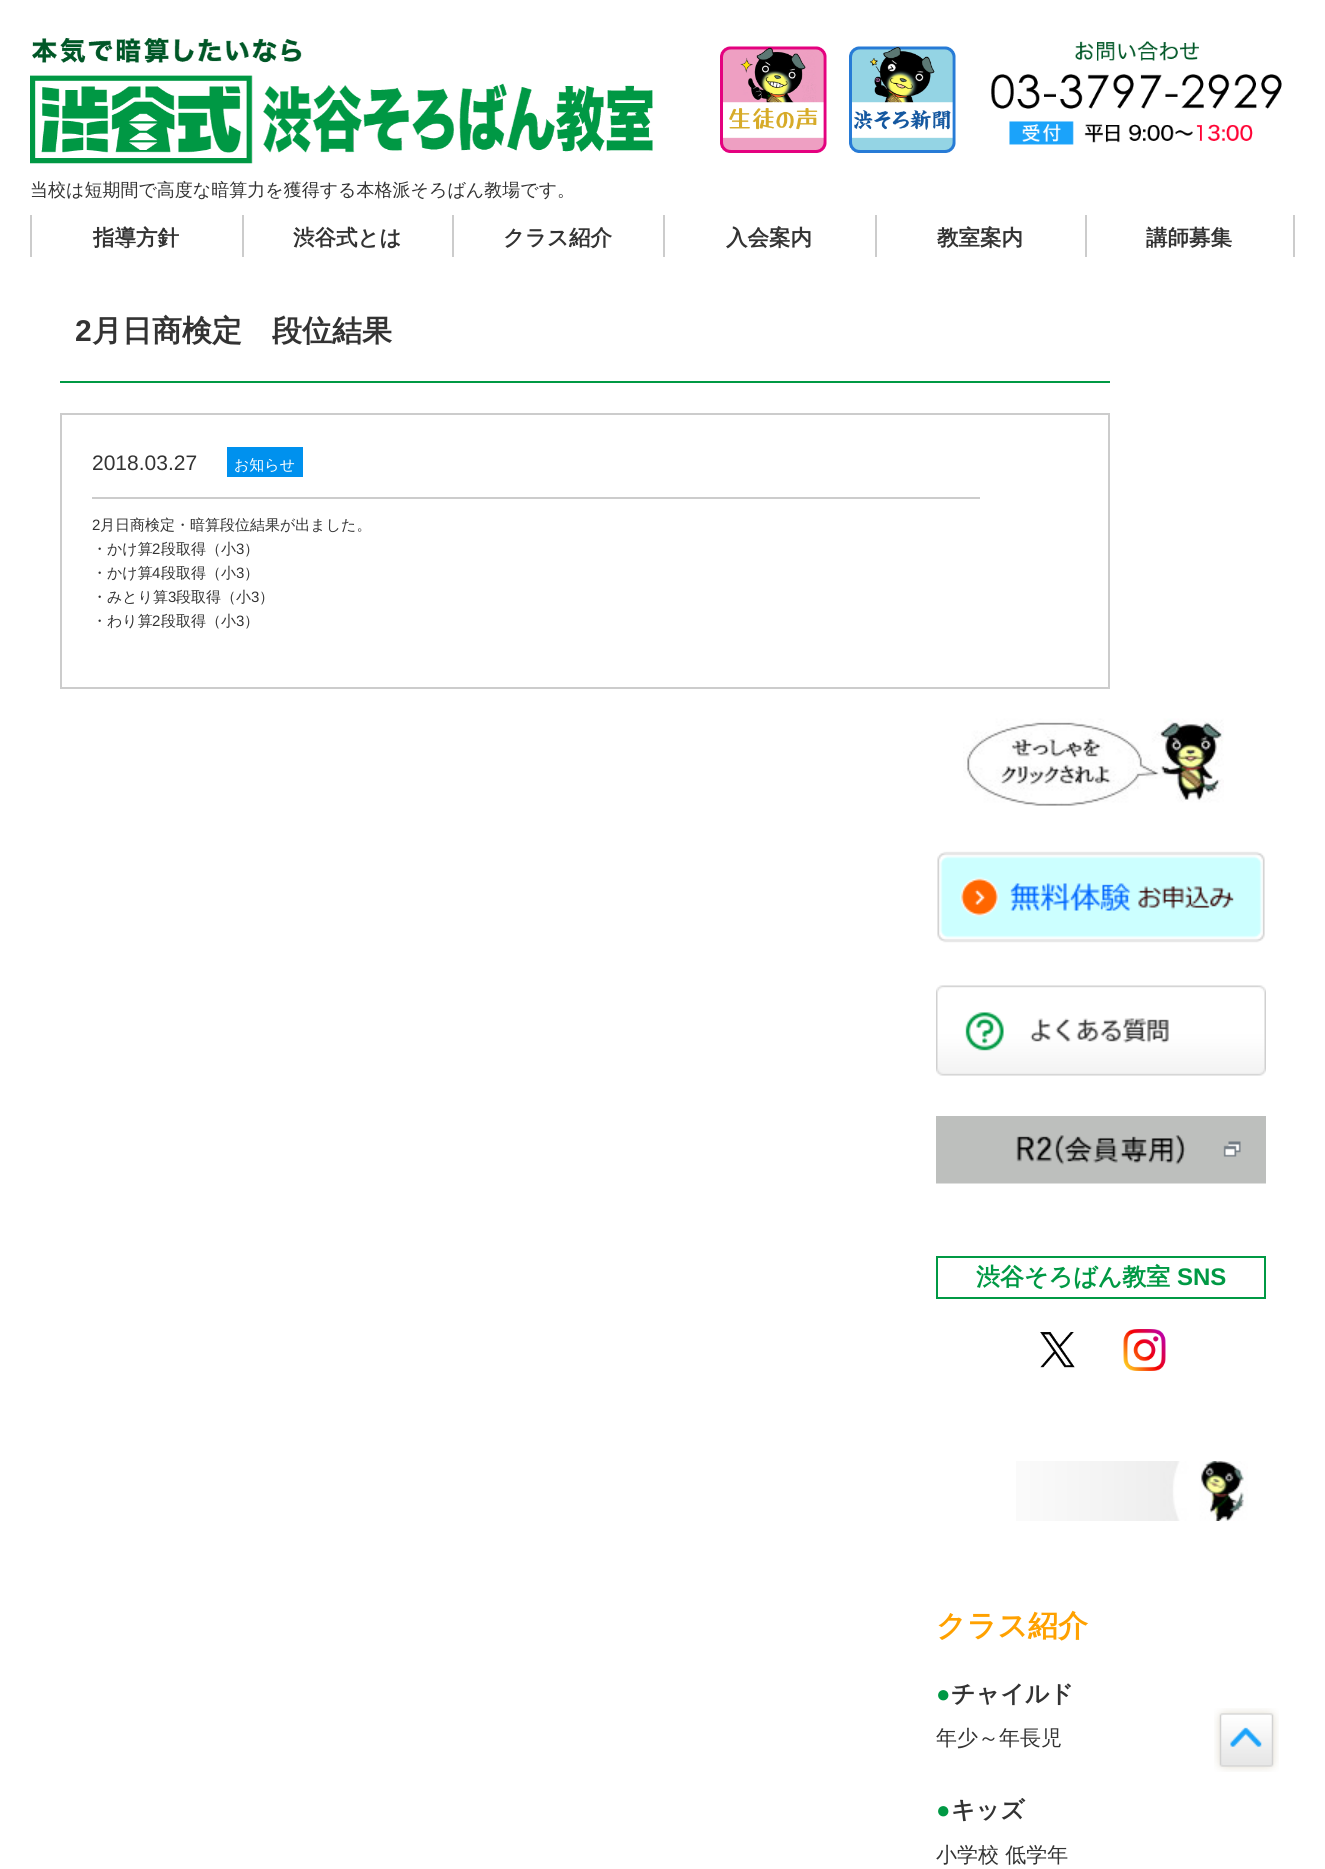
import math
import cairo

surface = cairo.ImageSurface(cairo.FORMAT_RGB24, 1325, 1869)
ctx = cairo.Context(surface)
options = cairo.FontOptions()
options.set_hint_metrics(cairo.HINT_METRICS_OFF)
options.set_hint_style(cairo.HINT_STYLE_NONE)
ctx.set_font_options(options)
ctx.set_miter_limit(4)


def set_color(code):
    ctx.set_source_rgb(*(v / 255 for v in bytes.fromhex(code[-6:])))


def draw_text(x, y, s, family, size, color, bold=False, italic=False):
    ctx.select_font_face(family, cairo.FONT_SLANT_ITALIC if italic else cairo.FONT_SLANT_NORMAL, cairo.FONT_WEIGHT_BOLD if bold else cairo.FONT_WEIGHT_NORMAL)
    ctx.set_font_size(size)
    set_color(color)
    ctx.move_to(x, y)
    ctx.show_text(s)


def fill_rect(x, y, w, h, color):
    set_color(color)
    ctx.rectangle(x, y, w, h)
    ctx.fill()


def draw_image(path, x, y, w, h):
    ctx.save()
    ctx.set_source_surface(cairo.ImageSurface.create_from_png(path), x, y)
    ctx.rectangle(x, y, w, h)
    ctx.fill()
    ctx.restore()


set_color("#ffffff")
ctx.paint()
draw_image("assets/img1.png", 720, 46, 107, 107)
draw_image("assets/img2.png", 849, 46, 107, 107)
draw_image("assets/img3.png", 991, 41, 291, 104)
draw_image("assets/img4.png", 30, 37, 623, 127)
draw_text(30, 196, "当校は短期間で高度な暗算力を獲得する本格派そろばん教場です。", "WenQuanYi Zen Hei Medium", 18, "#333333")
fill_rect(30, 215, 2, 42, "#cccccc")
draw_text(93, 245, "指導方針", "WenQuanYi Zen Hei", 21.5, "#333333", bold=True)
fill_rect(242, 215, 2, 42, "#cccccc")
draw_text(293, 245, "渋谷式とは", "WenQuanYi Zen Hei", 21.5, "#333333", bold=True)
fill_rect(452, 215, 2, 42, "#cccccc")
draw_text(503, 245, "クラス紹介", "WenQuanYi Zen Hei", 21.5, "#333333", bold=True)
fill_rect(663, 215, 2, 42, "#cccccc")
draw_text(726, 245, "入会案内", "WenQuanYi Zen Hei", 21.5, "#333333", bold=True)
fill_rect(875, 215, 2, 42, "#cccccc")
draw_text(937, 245, "教室案内", "WenQuanYi Zen Hei", 21.5, "#333333", bold=True)
fill_rect(1293, 215, 2, 42, "#cccccc")
fill_rect(1085, 215, 2, 42, "#cccccc")
draw_text(1146, 245, "講師募集", "WenQuanYi Zen Hei", 21.5, "#333333", bold=True)
fill_rect(60, 381, 1050, 2, "#009944")
draw_text(75, 341, "2", "Liberation Sans", 30, "#333333", bold=True)
draw_text(92, 341, "月日商検定　段位結果", "WenQuanYi Zen Hei", 30, "#333333", bold=True)
ctx.rectangle(61, 414, 1048, 274)
set_color("#cccccc")
ctx.stroke()
fill_rect(92, 497, 888, 2, "#cccccc")
draw_text(92, 470, "2018.03.27", "Liberation Sans", 21, "#333333")
fill_rect(227, 447, 76, 30, "#0091ee")
draw_text(234, 470, "お知らせ", "WenQuanYi Zen Hei Medium", 15, "#ffffff")
draw_text(92, 530, "2", "Liberation Sans", 15, "#333333")
draw_text(100, 530, "月日商検定・暗算段位結果が出ました。", "WenQuanYi Zen Hei Medium", 15, "#333333")
draw_text(92, 554, "・かけ算", "WenQuanYi Zen Hei Medium", 15, "#333333")
draw_text(152, 554, "2", "Liberation Sans", 15, "#333333")
draw_text(161, 554, "段取得（小", "WenQuanYi Zen Hei Medium", 15, "#333333")
draw_text(236, 554, "3", "Liberation Sans", 15, "#333333")
draw_text(244, 554, "）", "WenQuanYi Zen Hei Medium", 15, "#333333")
draw_text(92, 578, "・かけ算", "WenQuanYi Zen Hei Medium", 15, "#333333")
draw_text(152, 578, "4", "Liberation Sans", 15, "#333333")
draw_text(161, 578, "段取得（小", "WenQuanYi Zen Hei Medium", 15, "#333333")
draw_text(236, 578, "3", "Liberation Sans", 15, "#333333")
draw_text(244, 578, "）", "WenQuanYi Zen Hei Medium", 15, "#333333")
draw_text(92, 602, "・みとり算", "WenQuanYi Zen Hei Medium", 15, "#333333")
draw_text(168, 602, "3", "Liberation Sans", 15, "#333333")
draw_text(176, 602, "段取得（小", "WenQuanYi Zen Hei Medium", 15, "#333333")
draw_text(251, 602, "3", "Liberation Sans", 15, "#333333")
draw_text(259, 602, "）", "WenQuanYi Zen Hei Medium", 15, "#333333")
draw_text(92, 626, "・わり算", "WenQuanYi Zen Hei Medium", 15, "#333333")
draw_text(152, 626, "2", "Liberation Sans", 15, "#333333")
draw_text(161, 626, "段取得（小", "WenQuanYi Zen Hei Medium", 15, "#333333")
draw_text(236, 626, "3", "Liberation Sans", 15, "#333333")
draw_text(244, 626, "）", "WenQuanYi Zen Hei Medium", 15, "#333333")
draw_image("assets/img5.png", 963, 718, 261, 88)
draw_image("assets/img6.png", 937, 851, 328, 92)
draw_image("assets/img7.png", 936, 985, 330, 91)
draw_image("assets/img8.png", 936, 1116, 330, 68)
ctx.rectangle(937, 1257, 328, 41)
set_color("#009944")
ctx.stroke()
draw_text(976, 1285, "渋谷そろばん教室", "WenQuanYi Zen Hei", 24, "#009944", bold=True)
draw_text(1177, 1285, "SNS", "Liberation Sans", 24, "#009944", bold=True)
draw_image("assets/img9.png", 1040, 1332, 35, 36)
draw_image("assets/img10.png", 1123, 1329, 43, 42)
draw_image("assets/img11.png", 1016, 1461, 232, 60)
draw_text(936, 1636, "クラス紹介", "WenQuanYi Zen Hei", 30, "#ffa100", bold=True)
draw_text(936, 1702, "●", "Liberation Sans", 24, "#009944", bold=True)
draw_text(951, 1702, "チャイルド", "WenQuanYi Zen Hei", 24, "#333333", bold=True)
draw_text(936, 1745, "年少～年長児", "WenQuanYi Zen Hei Medium", 21, "#333333")
draw_text(936, 1818, "●", "Liberation Sans", 24, "#009944", bold=True)
draw_text(951, 1818, "キッズ", "WenQuanYi Zen Hei", 24, "#333333", bold=True)
draw_text(936, 1862, "小学校 低学年", "WenQuanYi Zen Hei Medium", 21, "#333333")
draw_image("assets/img12.png", 1214, 1708, 65, 64)
surface.write_to_png("output.png")
